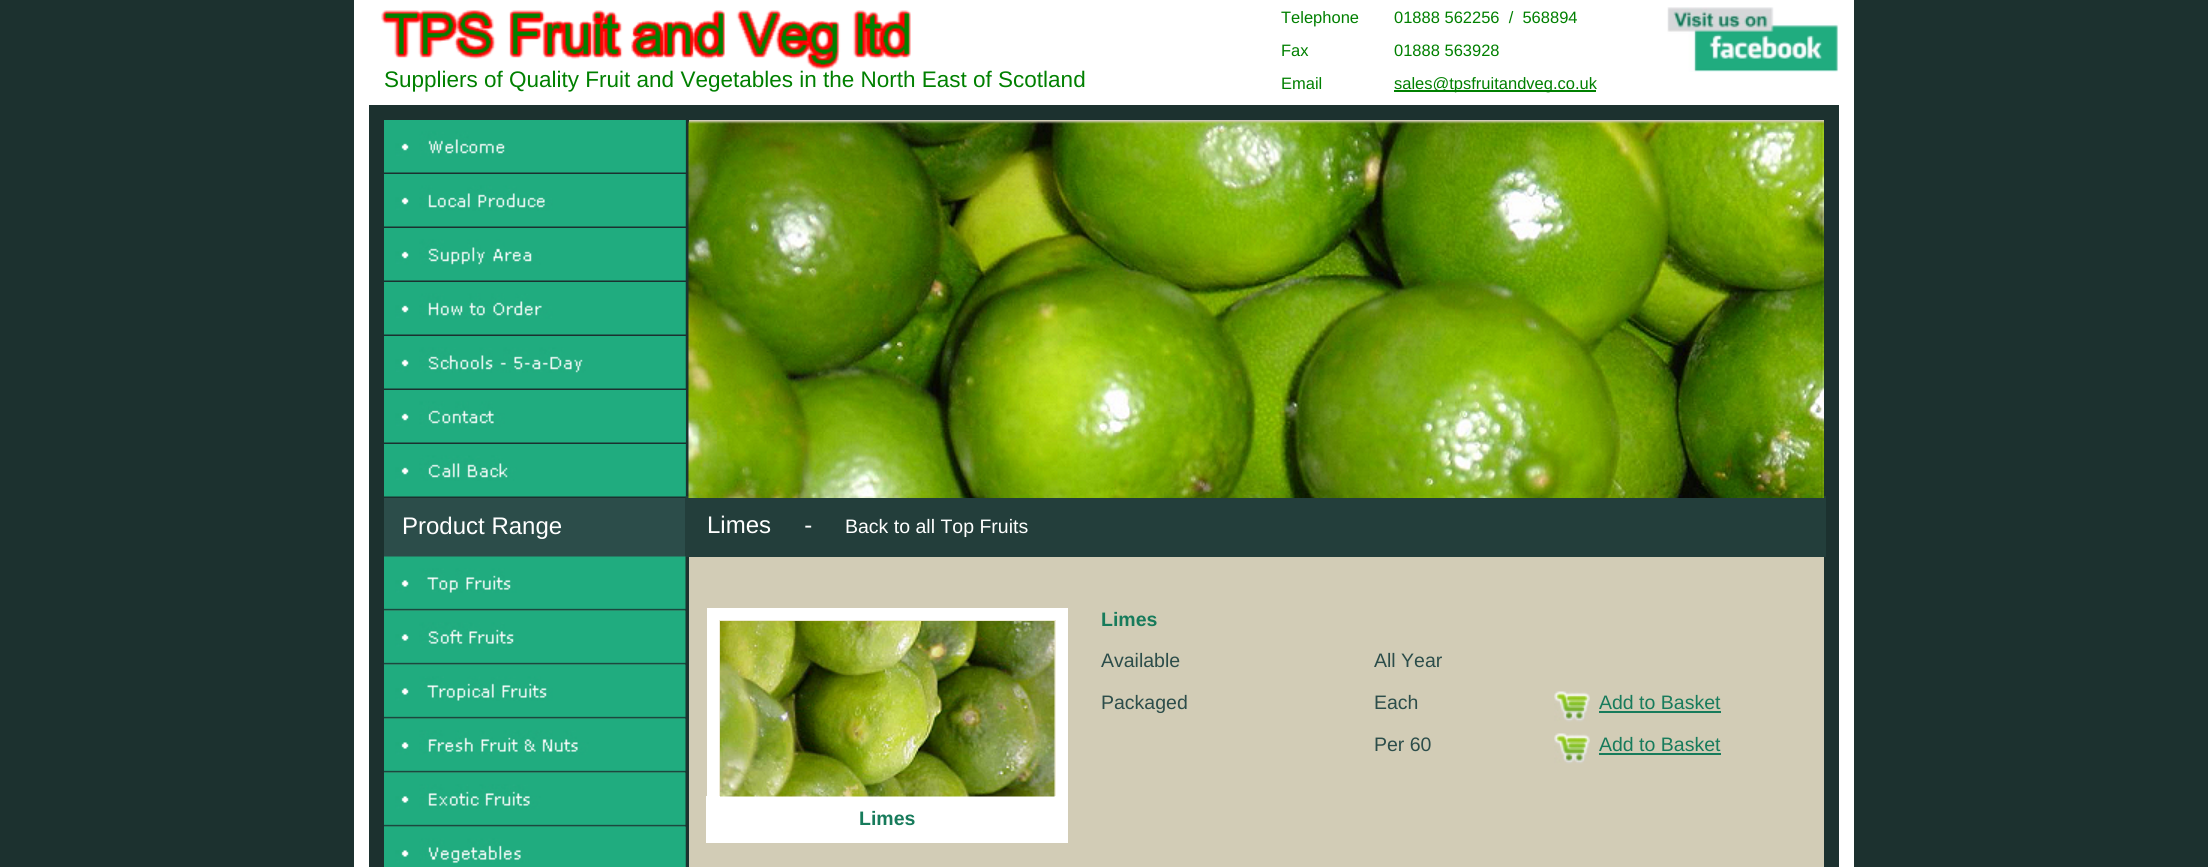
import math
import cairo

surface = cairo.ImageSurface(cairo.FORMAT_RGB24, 2208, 867)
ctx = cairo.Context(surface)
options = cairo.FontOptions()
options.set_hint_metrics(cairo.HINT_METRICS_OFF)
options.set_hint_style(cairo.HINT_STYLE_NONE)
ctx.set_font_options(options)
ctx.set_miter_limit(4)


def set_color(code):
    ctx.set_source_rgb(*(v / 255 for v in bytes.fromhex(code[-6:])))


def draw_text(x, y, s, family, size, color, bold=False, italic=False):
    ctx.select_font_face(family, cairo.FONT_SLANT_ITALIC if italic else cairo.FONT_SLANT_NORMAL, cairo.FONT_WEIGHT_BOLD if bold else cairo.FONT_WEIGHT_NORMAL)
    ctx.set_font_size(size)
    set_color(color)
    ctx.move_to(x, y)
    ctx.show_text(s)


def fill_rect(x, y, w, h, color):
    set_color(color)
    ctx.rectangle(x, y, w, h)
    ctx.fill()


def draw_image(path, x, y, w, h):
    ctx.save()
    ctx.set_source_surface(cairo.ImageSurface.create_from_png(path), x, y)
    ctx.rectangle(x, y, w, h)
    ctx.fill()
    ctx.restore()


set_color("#1c312f")
ctx.paint()
fill_rect(384, 120, 1440, 747, "#d2ccb6")
fill_rect(354, 0, 30, 867, "#ffffff")
fill_rect(384, 0, 1440, 105, "#ffffff")
fill_rect(1824, 0, 30, 867, "#ffffff")
draw_image("assets/img1.png", 381, 10, 530, 60)
draw_text(1281, 23, "Telephone", "Liberation Sans", 16.5, "#008000")
draw_text(1281, 56, "Fax", "Liberation Sans", 16.5, "#008000")
draw_text(1281, 89, "Email", "Liberation Sans", 16.5, "#008000")
draw_text(1394, 23, "01888 562256  /  568894", "Liberation Sans", 16.5, "#008000")
draw_text(1394, 56, "01888 563928", "Liberation Sans", 16.5, "#008000")
fill_rect(1394, 90, 202, 2, "#008000")
draw_text(1394, 89, "sales@tpsfruitandveg.co.uk", "Liberation Sans", 16.5, "#008000")
draw_image("assets/img2.png", 1667, 7, 172, 65)
draw_text(384, 87, "Suppliers of Quality Fruit and Vegetables in the North East of Scotland", "Liberation Sans", 22.5, "#008000")
fill_rect(369, 105, 1470, 15, "#1c312f")
fill_rect(369, 120, 15, 747, "#1c312f")
fill_rect(685, 120, 4, 747, "#1c312f")
draw_image("assets/img3.png", 384, 120, 302, 54)
draw_image("assets/img4.png", 685, 120, 1, 53)
draw_image("assets/img5.png", 685, 120, 1, 53)
fill_rect(1824, 120, 15, 747, "#1c312f")
draw_image("assets/img13.png", 384, 444, 302, 54)
fill_rect(685, 496, 1141, 61, "#233e3b")
draw_image("assets/img6.png", 688, 121, 1136, 377)
draw_image("assets/img7.png", 384, 174, 302, 54)
draw_image("assets/img4.png", 685, 174, 1, 53)
draw_image("assets/img8.png", 384, 228, 302, 54)
draw_image("assets/img4.png", 685, 228, 1, 53)
draw_image("assets/img9.png", 384, 282, 302, 54)
draw_image("assets/img4.png", 685, 282, 1, 53)
draw_image("assets/img10.png", 384, 336, 302, 54)
draw_image("assets/img4.png", 685, 336, 1, 53)
draw_image("assets/img11.png", 384, 390, 302, 54)
draw_image("assets/img4.png", 685, 390, 1, 53)
draw_image("assets/img5.png", 685, 390, 1, 53)
draw_image("assets/img12.png", 428, 390, 258, 52)
draw_image("assets/img15.png", 685, 444, 1, 54)
draw_image("assets/img14.png", 442, 444, 244, 53)
fill_rect(384, 498, 301, 59, "#2c4d4a")
draw_text(402, 534, "Product Range", "Liberation Sans", 24, "#ffffff")
draw_text(707, 533, "Limes     -", "Liberation Sans", 24, "#ffffff")
draw_text(845, 533, "Back to all Top Fruits", "Liberation Sans", 19.5, "#ffffff")
draw_image("assets/img17.png", 384, 610, 301, 1)
draw_image("assets/img18.png", 384, 610, 301, 55)
draw_image("assets/img16.png", 384, 556, 302, 55)
fill_rect(719, 620, 337, 176, "#efebd8")
ctx.rectangle(713, 614, 349, 190)
set_color("#ffffff")
ctx.set_line_width(12)
ctx.stroke()
draw_image("assets/img21.png", 384, 664, 301, 55)
draw_image("assets/img19.png", 384, 610, 302, 55)
fill_rect(706, 796, 362, 47, "#ffffff")
draw_image("assets/img20.png", 720, 621, 335, 176)
draw_text(1101, 626, "Limes", "Liberation Sans", 19.5, "#177b5b", bold=True)
draw_text(1101, 667, "Available", "Liberation Sans", 19.5, "#2c4d4a")
draw_text(1101, 709, "Packaged", "Liberation Sans", 19.5, "#2c4d4a")
draw_text(1374, 667, "All Year", "Liberation Sans", 19.5, "#2c4d4a")
draw_text(1374, 709, "Each", "Liberation Sans", 19.5, "#2c4d4a")
draw_text(1374, 751, "Per 60", "Liberation Sans", 19.5, "#2c4d4a")
draw_image("assets/img24.png", 384, 718, 301, 55)
draw_image("assets/img22.png", 384, 664, 302, 55)
draw_image("assets/img23.png", 1554, 691, 36, 31)
draw_text(1599, 709, "Add to Basket", "Liberation Sans", 19.5, "#177b5b")
fill_rect(1599, 711, 122, 2, "#177b5b")
draw_image("assets/img23.png", 1554, 733, 36, 31)
draw_text(1599, 751, "Add to Basket", "Liberation Sans", 19.5, "#177b5b")
fill_rect(1599, 753, 122, 2, "#177b5b")
draw_image("assets/img26.png", 384, 772, 301, 55)
draw_image("assets/img25.png", 384, 718, 302, 55)
draw_image("assets/img28.png", 384, 826, 301, 1)
draw_image("assets/img29.png", 384, 826, 302, 41)
draw_image("assets/img27.png", 384, 772, 302, 55)
draw_text(859, 825, "Limes", "Liberation Sans", 19.5, "#177b5b", bold=True)
draw_image("assets/img30.png", 384, 826, 302, 41)
surface.write_to_png("output.png")
